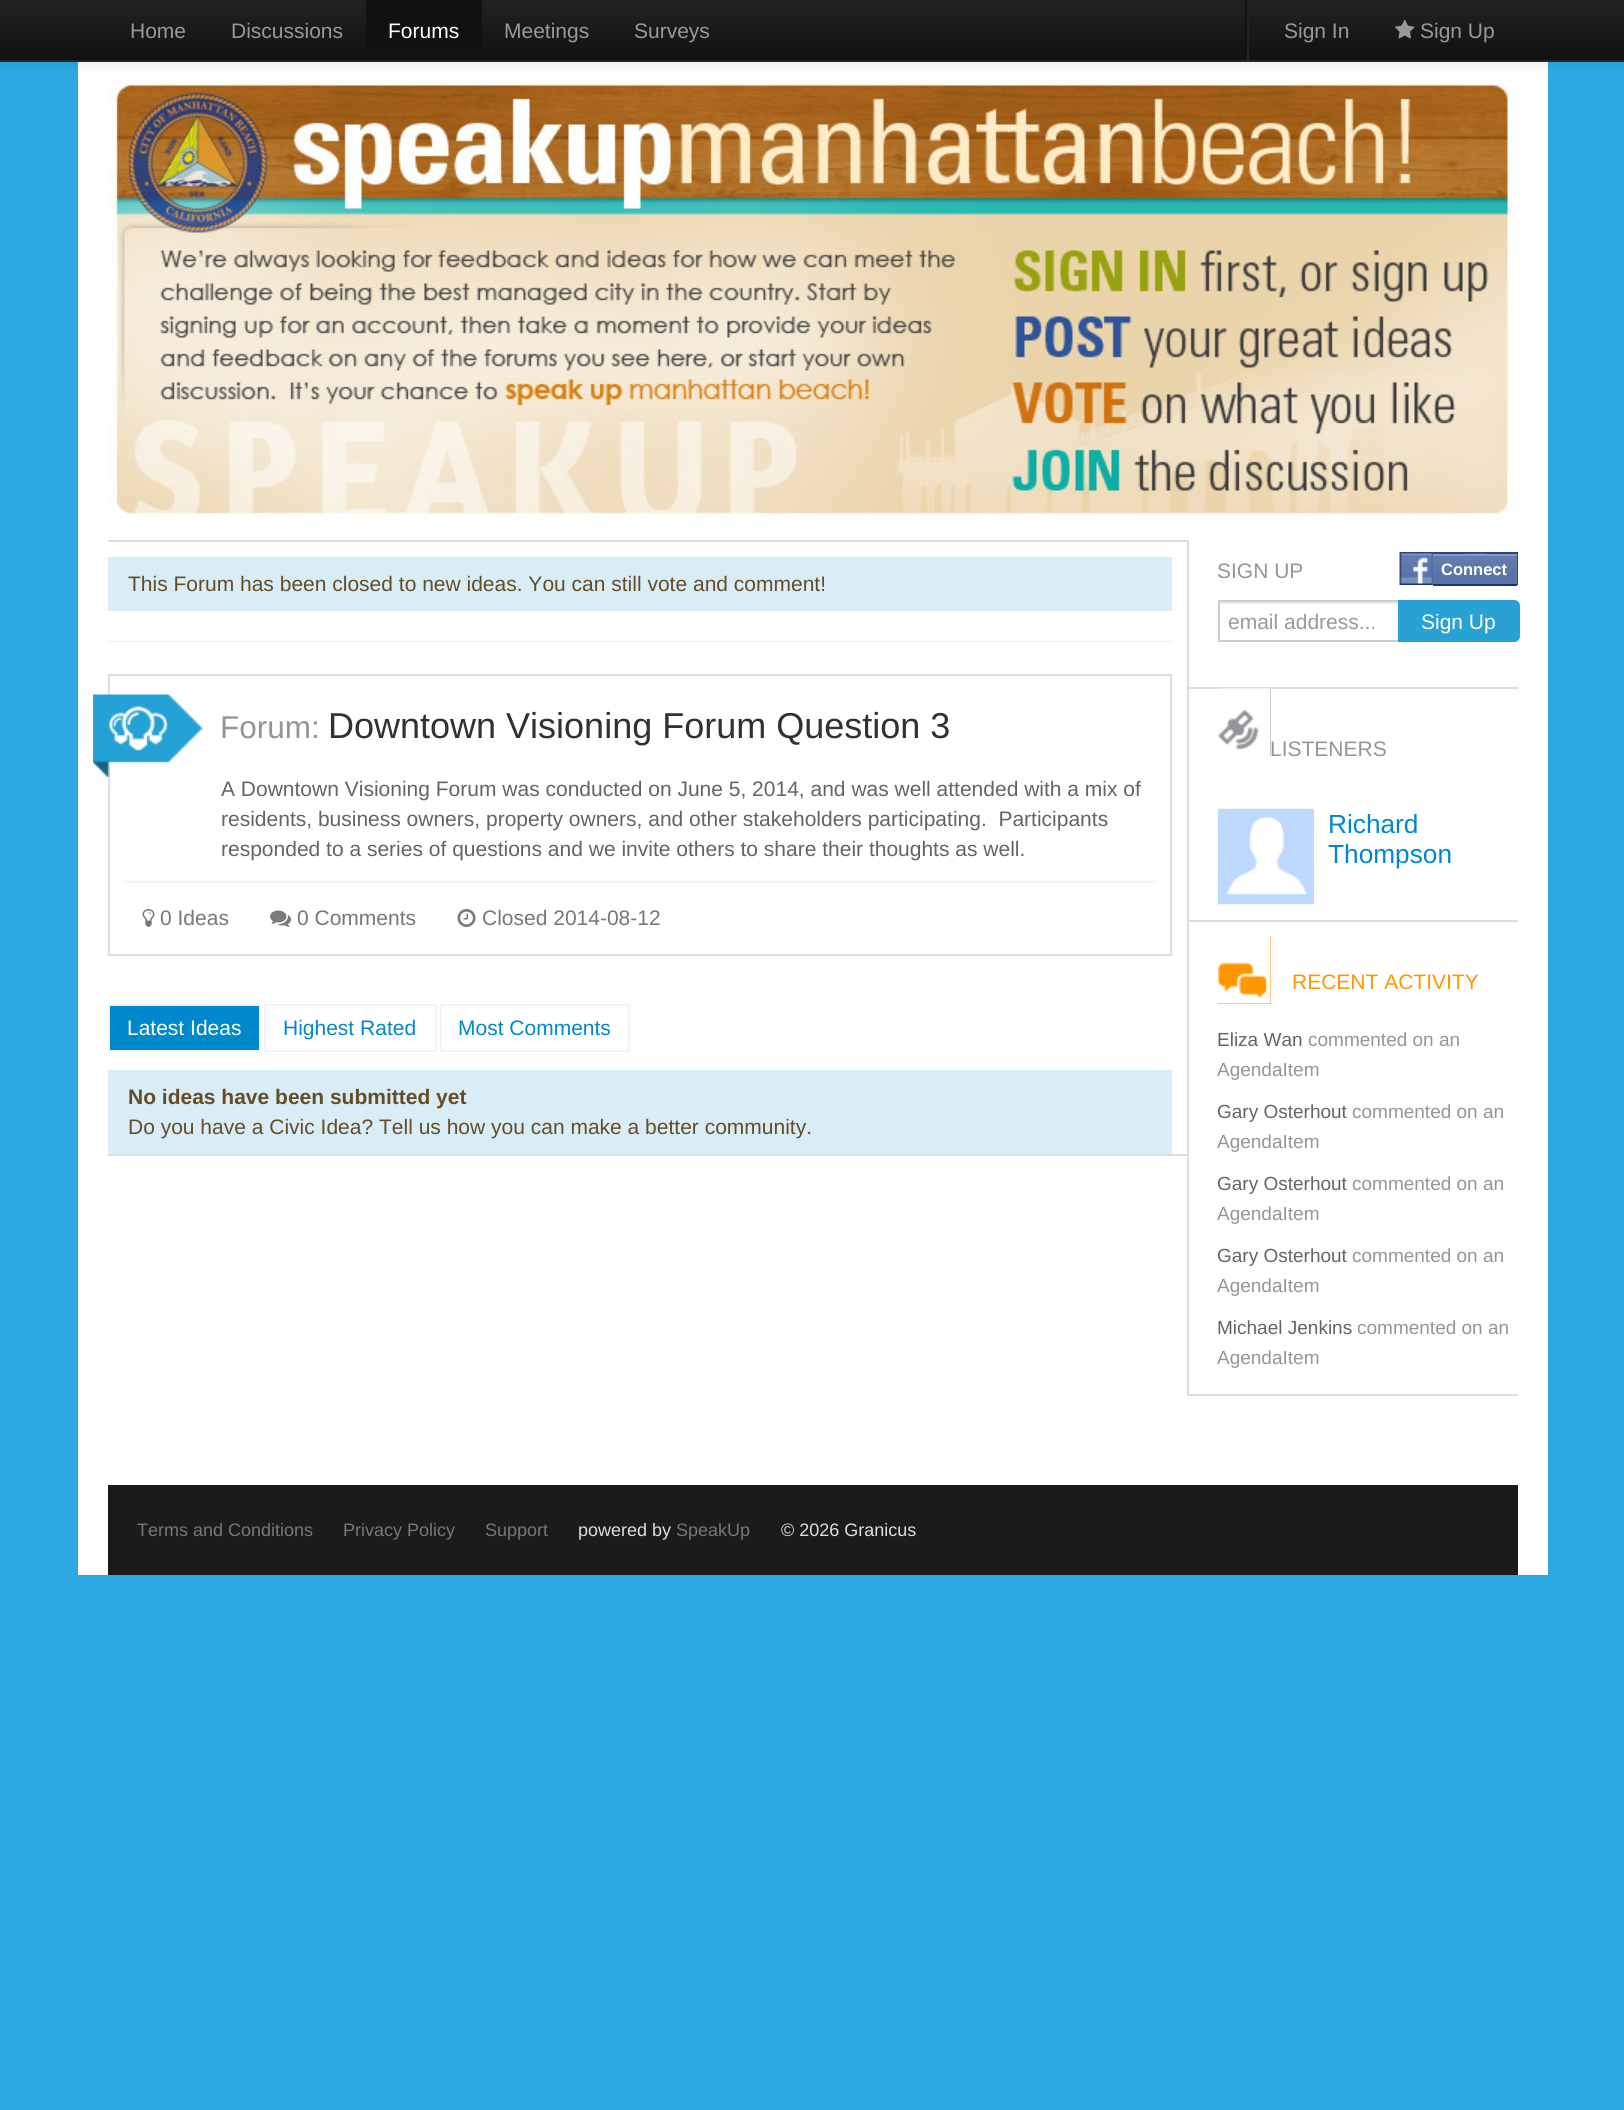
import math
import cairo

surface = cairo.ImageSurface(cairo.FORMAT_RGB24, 1624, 2110)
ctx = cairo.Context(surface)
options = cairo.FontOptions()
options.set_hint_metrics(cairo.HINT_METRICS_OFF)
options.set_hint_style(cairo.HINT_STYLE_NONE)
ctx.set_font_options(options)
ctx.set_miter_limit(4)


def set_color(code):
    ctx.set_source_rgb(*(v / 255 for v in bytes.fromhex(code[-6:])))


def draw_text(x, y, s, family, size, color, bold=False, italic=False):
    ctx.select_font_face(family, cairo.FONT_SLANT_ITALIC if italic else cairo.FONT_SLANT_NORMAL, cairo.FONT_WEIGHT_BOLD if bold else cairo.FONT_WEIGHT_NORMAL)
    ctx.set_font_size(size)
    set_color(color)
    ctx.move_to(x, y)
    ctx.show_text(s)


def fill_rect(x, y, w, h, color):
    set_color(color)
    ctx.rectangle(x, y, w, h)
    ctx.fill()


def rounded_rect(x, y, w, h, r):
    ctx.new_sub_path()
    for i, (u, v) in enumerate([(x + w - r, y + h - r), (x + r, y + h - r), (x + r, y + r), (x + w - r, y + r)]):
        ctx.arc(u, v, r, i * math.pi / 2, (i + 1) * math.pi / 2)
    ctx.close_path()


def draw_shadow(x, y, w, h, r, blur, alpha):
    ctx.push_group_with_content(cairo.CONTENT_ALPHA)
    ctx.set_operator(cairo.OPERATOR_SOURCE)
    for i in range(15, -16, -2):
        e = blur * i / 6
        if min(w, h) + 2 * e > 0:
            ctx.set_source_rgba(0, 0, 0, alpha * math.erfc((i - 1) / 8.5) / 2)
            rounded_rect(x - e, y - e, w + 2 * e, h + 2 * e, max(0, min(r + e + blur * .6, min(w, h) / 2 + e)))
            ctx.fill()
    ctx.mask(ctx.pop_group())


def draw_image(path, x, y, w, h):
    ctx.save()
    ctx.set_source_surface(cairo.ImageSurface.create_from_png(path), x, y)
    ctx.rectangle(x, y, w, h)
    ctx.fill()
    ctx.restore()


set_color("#2ca9e3")
ctx.paint()
fill_rect(78, 62, 1470, 1513, "#ffffff")
draw_image("assets/img2.png", 108, 75, 1404, 444)
set_color("#000000")
draw_shadow(0, 2, 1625, 61, 0, 7.5, 0.1)
gradient = cairo.LinearGradient(812, 0, 812, 60)
gradient.add_color_stop_rgba(0, 0.133, 0.133, 0.133, 1)
gradient.add_color_stop_rgba(1, 0.067, 0.067, 0.067, 1)
ctx.set_source(gradient)
ctx.rectangle(0, 0, 1624, 60)
ctx.fill()
fill_rect(0, 60, 1624, 2, "#252525")
draw_text(130, 38, "Home", "Liberation Sans", 21, "#999999")
draw_text(231, 38, "Discussions", "Liberation Sans", 21, "#999999")
fill_rect(366, 0, 116, 51, "#111111")
draw_text(388, 38, "Forums", "Liberation Sans", 21, "#ffffff")
draw_text(504, 38, "Meetings", "Liberation Sans", 21, "#999999")
draw_text(634, 38, "Surveys", "Liberation Sans", 21, "#999999")
fill_rect(1247, 9, 2, 51, "#222222")
fill_rect(1245, 0, 2, 51, "#111111")
draw_text(1284, 38, "Sign In", "Liberation Sans", 21, "#999999")
draw_image("assets/img1.png", 1395, 19, 20, 20)
draw_text(1420, 38, "Sign Up", "Liberation Sans", 21, "#999999")
fill_rect(108, 540, 1080, 2, "#dddddd")
fill_rect(1187, 540, 2, 30, "#dddddd")
fill_rect(108, 1154, 1080, 2, "#dddddd")
fill_rect(108, 557, 1064, 54, "#d9edf7")
draw_text(128, 591, "This Forum has been closed to new ideas. You can still vote and comment!", "Liberation Sans", 21, "#644d26")
fill_rect(108, 641, 1064, 1, "#eeeeee")
ctx.rectangle(109, 675, 1062, 280)
set_color("#dedfe0")
ctx.stroke()
draw_image("assets/img3.png", 93, 694, 110, 83)
draw_text(220, 738, "Forum:", "Liberation Sans", 31.5, "#939598")
draw_text(328, 738, "Downtown Visioning Forum Question 3", "Liberation Sans", 36, "#313131")
draw_text(221, 796, "A Downtown Visioning Forum was conducted on June 5, 2014, and was well attended with a mix of", "Liberation Sans", 21, "#646464")
draw_text(221, 826, "residents, business owners, property owners, and other stakeholders participating.  Participants", "Liberation Sans", 21, "#646464")
draw_text(221, 856, "responded to a series of questions and we invite others to share their thoughts as well.", "Liberation Sans", 21, "#646464")
fill_rect(125, 881, 1030, 2, "#f4f4f4")
draw_image("assets/img4.png", 142, 909, 13, 18)
draw_text(160, 925, "0 Ideas", "Liberation Sans", 21, "#777777")
draw_image("assets/img5.png", 270, 910, 21, 17)
draw_text(297, 925, "0 Comments", "Liberation Sans", 21, "#777777")
draw_image("assets/img6.png", 457, 909, 19, 18)
draw_text(482, 925, "Closed 2014-08-12", "Liberation Sans", 21, "#777777")
set_color("#0088cc")
ctx.rectangle(109, 1005, 151, 46)
ctx.fill_preserve()
set_color("#f4f4f4")
ctx.stroke()
draw_text(127, 1035, "Latest Ideas", "Liberation Sans", 21, "#ffffff")
ctx.rectangle(265, 1005, 171, 46)
set_color("#f4f4f4")
ctx.stroke()
draw_text(283, 1035, "Highest Rated", "Liberation Sans", 21, "#0088cc")
ctx.rectangle(441, 1005, 188, 46)
set_color("#f4f4f4")
ctx.stroke()
draw_text(458, 1035, "Most Comments", "Liberation Sans", 21, "#0088cc")
fill_rect(108, 1070, 1064, 84, "#d9edf7")
draw_text(128, 1104, "No ideas have been submitted yet", "Liberation Sans", 21, "#644d26", bold=True)
draw_text(128, 1134, "Do you have a Civic Idea? Tell us how you can make a better community.", "Liberation Sans", 21, "#644d26")
fill_rect(1187, 1394, 331, 2, "#dddddd")
fill_rect(1187, 570, 2, 825, "#dddddd")
draw_text(1217, 578, "SIGN UP", "Liberation Sans", 21, "#939598")
fill_rect(1433, 552, 85, 33, "#29447e")
draw_image("assets/img7.png", 1399, 552, 35, 33)
fill_rect(1516, 556, 1, 28, "#5f78ab")
draw_image("assets/img8.png", 1432, 553, 84, 32)
fill_rect(1433, 554, 84, 2, "#879ac0")
fill_rect(1433, 584, 84, 2, "#1a356e")
draw_text(1441, 575, "Connect", "Liberation Sans", 16.5, "#ffffff", bold=True)
fill_rect(1220, 602, 178, 2, "#ececec")
ctx.rectangle(1219, 601, 180, 40)
set_color("#cccccc")
ctx.stroke()
ctx.save()
ctx.rectangle(1229, 609, 160, 24)
ctx.clip()
draw_text(1228, 629, "email address...", "Liberation Sans", 21, "#999999")
ctx.restore()
set_color("#28a2d5")
ctx.new_path()
ctx.move_to(1398, 600)
ctx.line_to(1514, 600)
ctx.curve_to(1517.5, 600, 1520, 602.5, 1520, 606)
ctx.line_to(1520, 636)
ctx.curve_to(1520, 639.5, 1517.5, 642, 1514, 642)
ctx.line_to(1398, 642)
ctx.close_path()
ctx.fill()
draw_text(1421, 629, "Sign Up", "Liberation Sans", 21, "#ffffff")
fill_rect(1188, 687, 330, 2, "#dddddd")
fill_rect(1218, 689, 53, 67, "#939598")
draw_image("assets/img9.png", 1218, 688, 53, 68)
draw_text(1270, 756, "LISTENERS", "Liberation Sans", 21, "#939598")
draw_image("assets/img10.png", 1218, 808, 96, 97)
draw_text(1328, 833, "Richard", "Liberation Sans", 26.25, "#0088cc")
draw_text(1328, 863, "Thompson", "Liberation Sans", 26.25, "#0088cc")
fill_rect(1188, 920, 330, 2, "#dddddd")
fill_rect(1218, 936, 53, 68, "#ff9600")
draw_image("assets/img11.png", 1218, 936, 53, 68)
draw_text(1292, 989, "RECENT ACTIVITY", "Liberation Sans", 21, "#ff9600")
draw_text(1217, 1046, "Eliza Wan", "Liberation Sans", 19, "#646464")
draw_text(1308, 1046, "commented on an", "Liberation Sans", 19, "#939598")
draw_text(1217, 1076, "AgendaItem", "Liberation Sans", 19, "#939598")
draw_text(1217, 1118, "Gary Osterhout", "Liberation Sans", 19, "#646464")
draw_text(1352, 1118, "commented on an", "Liberation Sans", 19, "#939598")
draw_text(1217, 1148, "AgendaItem", "Liberation Sans", 19, "#939598")
draw_text(1217, 1190, "Gary Osterhout", "Liberation Sans", 19, "#646464")
draw_text(1352, 1190, "commented on an", "Liberation Sans", 19, "#939598")
draw_text(1217, 1220, "AgendaItem", "Liberation Sans", 19, "#939598")
draw_text(1217, 1262, "Gary Osterhout", "Liberation Sans", 19, "#646464")
draw_text(1352, 1262, "commented on an", "Liberation Sans", 19, "#939598")
draw_text(1217, 1292, "AgendaItem", "Liberation Sans", 19, "#939598")
draw_text(1217, 1334, "Michael Jenkins", "Liberation Sans", 19, "#646464")
draw_text(1357, 1334, "commented on an", "Liberation Sans", 19, "#939598")
draw_text(1217, 1364, "AgendaItem", "Liberation Sans", 19, "#939598")
fill_rect(108, 1485, 1410, 90, "#1b1b1b")
draw_text(137, 1536, "Terms and Conditions", "Liberation Sans", 18, "#777777")
draw_text(343, 1536, "Privacy Policy", "Liberation Sans", 18, "#777777")
draw_text(485, 1536, "Support", "Liberation Sans", 18, "#777777")
draw_text(578, 1536, "powered by", "Liberation Sans", 18, "#dedfe0")
draw_text(676, 1536, "SpeakUp", "Liberation Sans", 18, "#777777")
draw_text(781, 1536, "© 2026 Granicus", "Liberation Sans", 18, "#dedfe0")
surface.write_to_png("output.png")
